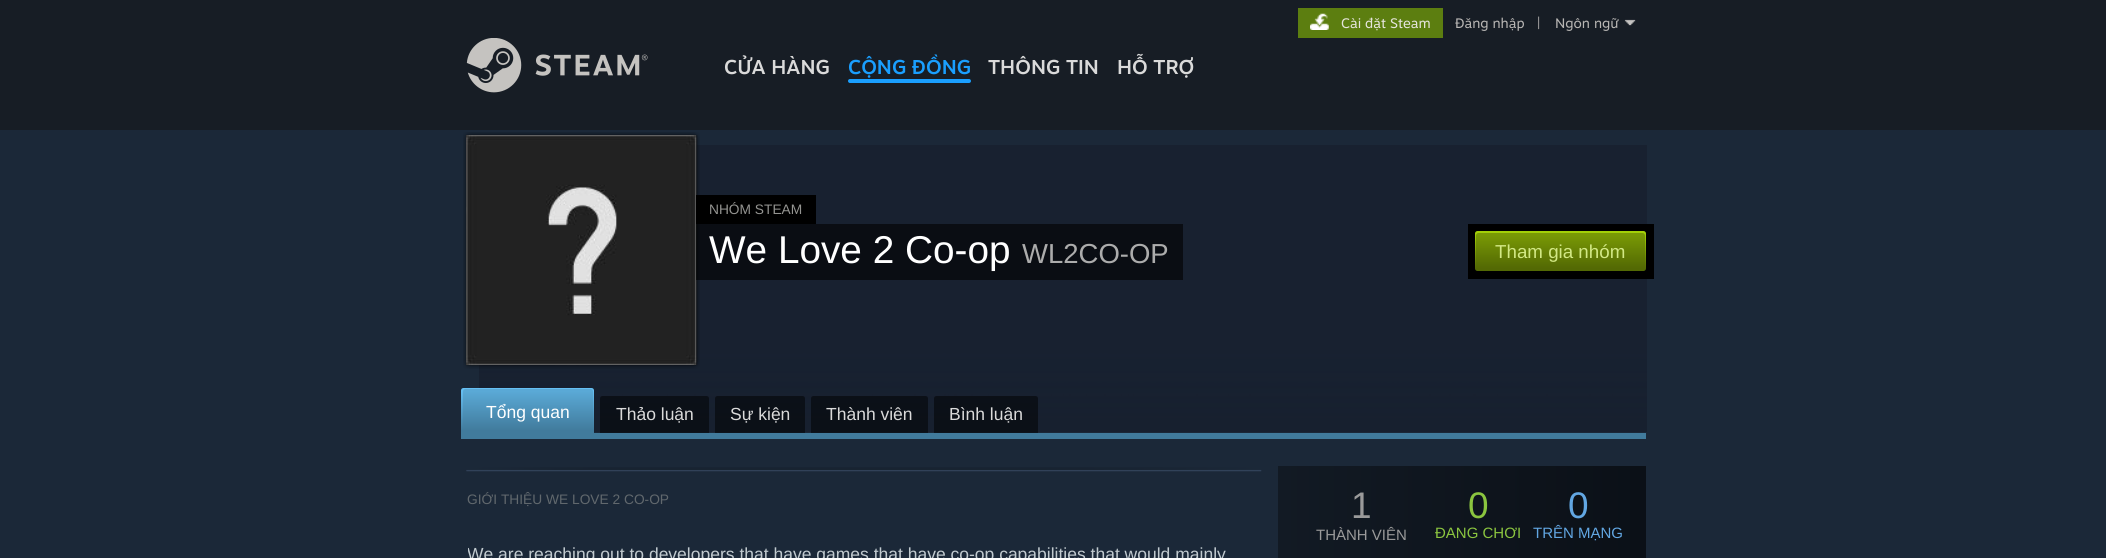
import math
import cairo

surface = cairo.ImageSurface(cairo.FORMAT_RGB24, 2106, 558)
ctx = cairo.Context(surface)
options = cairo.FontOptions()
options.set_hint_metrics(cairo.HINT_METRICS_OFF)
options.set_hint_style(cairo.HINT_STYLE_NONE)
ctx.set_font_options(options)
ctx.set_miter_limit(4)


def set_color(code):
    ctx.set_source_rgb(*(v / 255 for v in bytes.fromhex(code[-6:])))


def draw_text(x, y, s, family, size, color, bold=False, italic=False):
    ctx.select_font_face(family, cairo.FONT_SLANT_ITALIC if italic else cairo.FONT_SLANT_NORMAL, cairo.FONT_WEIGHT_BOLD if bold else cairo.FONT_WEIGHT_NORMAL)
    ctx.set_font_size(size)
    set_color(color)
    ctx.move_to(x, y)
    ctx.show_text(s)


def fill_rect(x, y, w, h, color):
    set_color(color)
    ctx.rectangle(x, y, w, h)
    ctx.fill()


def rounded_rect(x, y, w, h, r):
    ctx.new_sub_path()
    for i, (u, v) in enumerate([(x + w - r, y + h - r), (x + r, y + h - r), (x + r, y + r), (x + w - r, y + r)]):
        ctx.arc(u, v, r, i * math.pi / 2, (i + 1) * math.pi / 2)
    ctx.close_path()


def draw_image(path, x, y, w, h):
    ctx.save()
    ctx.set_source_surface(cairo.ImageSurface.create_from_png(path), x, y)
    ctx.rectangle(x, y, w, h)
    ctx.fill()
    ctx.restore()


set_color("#1b2838")
ctx.paint()
fill_rect(0, 0, 2106, 130, "#171d25")
fill_rect(1298, 8, 145, 30, "#5c7e10")
draw_image("assets/img1.png", 1310, 13, 19, 17)
draw_text(1341, 28, "Cài đặt Steam", "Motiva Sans", 13.75, "#e5e4dc")
draw_text(1455, 28, "Đăng nhập", "Motiva Sans", 13.75, "#b8b6b4")
draw_text(1537, 28, "|", "Motiva Sans", 13.75, "#b8b6b4")
draw_text(1555, 28, "Ngôn ngữ", "Motiva Sans", 13.75, "#b8b6b4")
draw_image("assets/img2.png", 1624, 19, 12, 7)
draw_image("assets/img3.png", 466, 38, 182, 55)
draw_text(724, 74, "CỬA HÀNG", "Motiva Sans Medium", 20, "#dadada")
draw_text(848, 74, "CỘNG ĐỒNG", "Motiva Sans Medium", 20, "#1a9fff")
rounded_rect(848, 79, 123, 4, 2)
ctx.fill()
draw_text(988, 74, "THÔNG TIN", "Motiva Sans Medium", 20, "#dadada")
draw_text(1117, 74, "HỖ TRỢ", "Motiva Sans Medium", 20, "#dadada")
fill_rect(461, 433, 1185, 6, "#417b9c")
draw_image("assets/img4.png", 479, 145, 1168, 287)
draw_image("assets/img5.png", 463, 132, 237, 237)
draw_image("assets/img6.png", 466, 135, 231, 230)
fill_rect(696, 195, 120, 29, "#000000")
draw_text(709, 214, "NHÓM STEAM", "Liberation Sans", 13.75, "#949491")
ctx.set_source_rgba(0, 0, 0, 0.6)
ctx.rectangle(696, 224, 487, 56)
ctx.fill()
draw_text(709, 263, "We Love 2 Co-op", "Liberation Sans", 38.75, "#ffffff")
draw_text(1022, 263, "WL2CO-OP", "Liberation Sans", 27.5, "#acacac")
fill_rect(1468, 224, 186, 55, "#000000")
gradient = cairo.LinearGradient(1561, 231, 1561, 271)
gradient.add_color_stop_rgba(0.05, 0.643, 0.816, 0.027, 1)
gradient.add_color_stop_rgba(0.95, 0.325, 0.412, 0.016, 1)
ctx.set_source(gradient)
rounded_rect(1475, 231, 171, 40, 2.5)
ctx.fill()
gradient = cairo.LinearGradient(1561, 233, 1561, 270)
gradient.add_color_stop_rgba(0.05, 0.475, 0.6, 0.02, 1)
gradient.add_color_stop_rgba(0.95, 0.325, 0.412, 0.016, 1)
ctx.set_source(gradient)
rounded_rect(1476, 233, 169, 37, 2.5)
ctx.fill()
draw_text(1495, 258, "Tham gia nhóm", "Liberation Sans", 18.75, "#d2e885")
gradient = cairo.LinearGradient(528, 388, 528, 433)
gradient.add_color_stop_rgba(0.05, 0.4, 0.753, 0.957, 1)
gradient.add_color_stop_rgba(0.95, 0.255, 0.482, 0.612, 1)
ctx.set_source(gradient)
ctx.new_path()
ctx.move_to(463.5, 388)
ctx.line_to(591.5, 388)
ctx.curve_to(593, 388, 594, 389, 594, 390.5)
ctx.line_to(594, 433)
ctx.line_to(461, 433)
ctx.line_to(461, 390.5)
ctx.curve_to(461, 389, 462, 388, 463.5, 388)
ctx.close_path()
ctx.fill()
gradient = cairo.LinearGradient(528, 389, 528, 433)
gradient.add_color_stop_rgba(0.05, 0.353, 0.663, 0.839, 1)
gradient.add_color_stop_rgba(0.95, 0.255, 0.482, 0.612, 1)
ctx.set_source(gradient)
ctx.new_path()
ctx.move_to(465.5, 389)
ctx.line_to(590.5, 389)
ctx.curve_to(592, 389, 593, 390, 593, 391.5)
ctx.line_to(593, 433)
ctx.line_to(463, 433)
ctx.line_to(463, 391.5)
ctx.curve_to(463, 390, 464, 389, 465.5, 389)
ctx.close_path()
ctx.fill()
draw_text(486, 418, "Tổng quan", "Liberation Sans", 17.5, "#ffffff")
ctx.set_source_rgba(0, 0, 0, 0.5)
ctx.new_path()
ctx.move_to(602.5, 396)
ctx.line_to(706.5, 396)
ctx.curve_to(708, 396, 709, 397, 709, 398.5)
ctx.line_to(709, 433)
ctx.line_to(600, 433)
ctx.line_to(600, 398.5)
ctx.curve_to(600, 397, 601, 396, 602.5, 396)
ctx.close_path()
ctx.fill()
draw_text(616, 420, "Thảo luận", "Liberation Sans", 17.5, "#dadada")
ctx.set_source_rgba(0, 0, 0, 0.5)
ctx.new_path()
ctx.move_to(717.5, 396)
ctx.line_to(802.5, 396)
ctx.curve_to(804, 396, 805, 397, 805, 398.5)
ctx.line_to(805, 433)
ctx.line_to(715, 433)
ctx.line_to(715, 398.5)
ctx.curve_to(715, 397, 716, 396, 717.5, 396)
ctx.close_path()
ctx.fill()
draw_text(730, 420, "Sự kiện", "Liberation Sans", 17.5, "#dadada")
ctx.set_source_rgba(0, 0, 0, 0.5)
ctx.new_path()
ctx.move_to(813.5, 396)
ctx.line_to(925.5, 396)
ctx.curve_to(927, 396, 928, 397, 928, 398.5)
ctx.line_to(928, 433)
ctx.line_to(811, 433)
ctx.line_to(811, 398.5)
ctx.curve_to(811, 397, 812, 396, 813.5, 396)
ctx.close_path()
ctx.fill()
draw_text(826, 420, "Thành viên", "Liberation Sans", 17.5, "#dadada")
ctx.set_source_rgba(0, 0, 0, 0.5)
ctx.new_path()
ctx.move_to(936.5, 396)
ctx.line_to(1035.5, 396)
ctx.curve_to(1037, 396, 1038, 397, 1038, 398.5)
ctx.line_to(1038, 433)
ctx.line_to(934, 433)
ctx.line_to(934, 398.5)
ctx.curve_to(934, 397, 935, 396, 936.5, 396)
ctx.close_path()
ctx.fill()
draw_text(949, 420, "Bình luận", "Liberation Sans", 17.5, "#dadada")
draw_image("assets/img7.png", 466, 467, 796, 5)
draw_text(467, 504, "GIỚI THIỆU WE LOVE 2 CO-OP", "Liberation Sans", 13.75, "#61686d")
ctx.save()
ctx.rectangle(468, 544, 782, 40)
ctx.clip()
draw_text(467, 560, "We are reaching out to developers that have games that have co-op capabilities that would mainly", "Liberation Sans", 17.5, "#c1cacf")
ctx.restore()
gradient = cairo.LinearGradient(1278, 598, 1646, 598)
gradient.add_color_stop_rgba(0, 0.071, 0.102, 0.141, 1)
gradient.add_color_stop_rgba(1, 0.043, 0.063, 0.09, 1)
ctx.set_source(gradient)
ctx.rectangle(1278, 466, 368, 92)
ctx.fill()
draw_text(1351, 518, "1", "Liberation Sans", 37, "#9a9a9a")
draw_text(1316, 540, "THÀNH VIÊN", "Liberation Sans", 15, "#9a9a9a")
draw_text(1468, 518, "0", "Liberation Sans", 37, "#8bc53f")
draw_text(1435, 538, "ĐANG CHƠI", "Liberation Sans", 15, "#8bc53f")
draw_text(1568, 518, "0", "Liberation Sans", 37, "#62a7e3")
draw_text(1533, 538, "TRÊN MẠNG", "Liberation Sans", 15, "#62a7e3")
surface.write_to_png("output.png")
